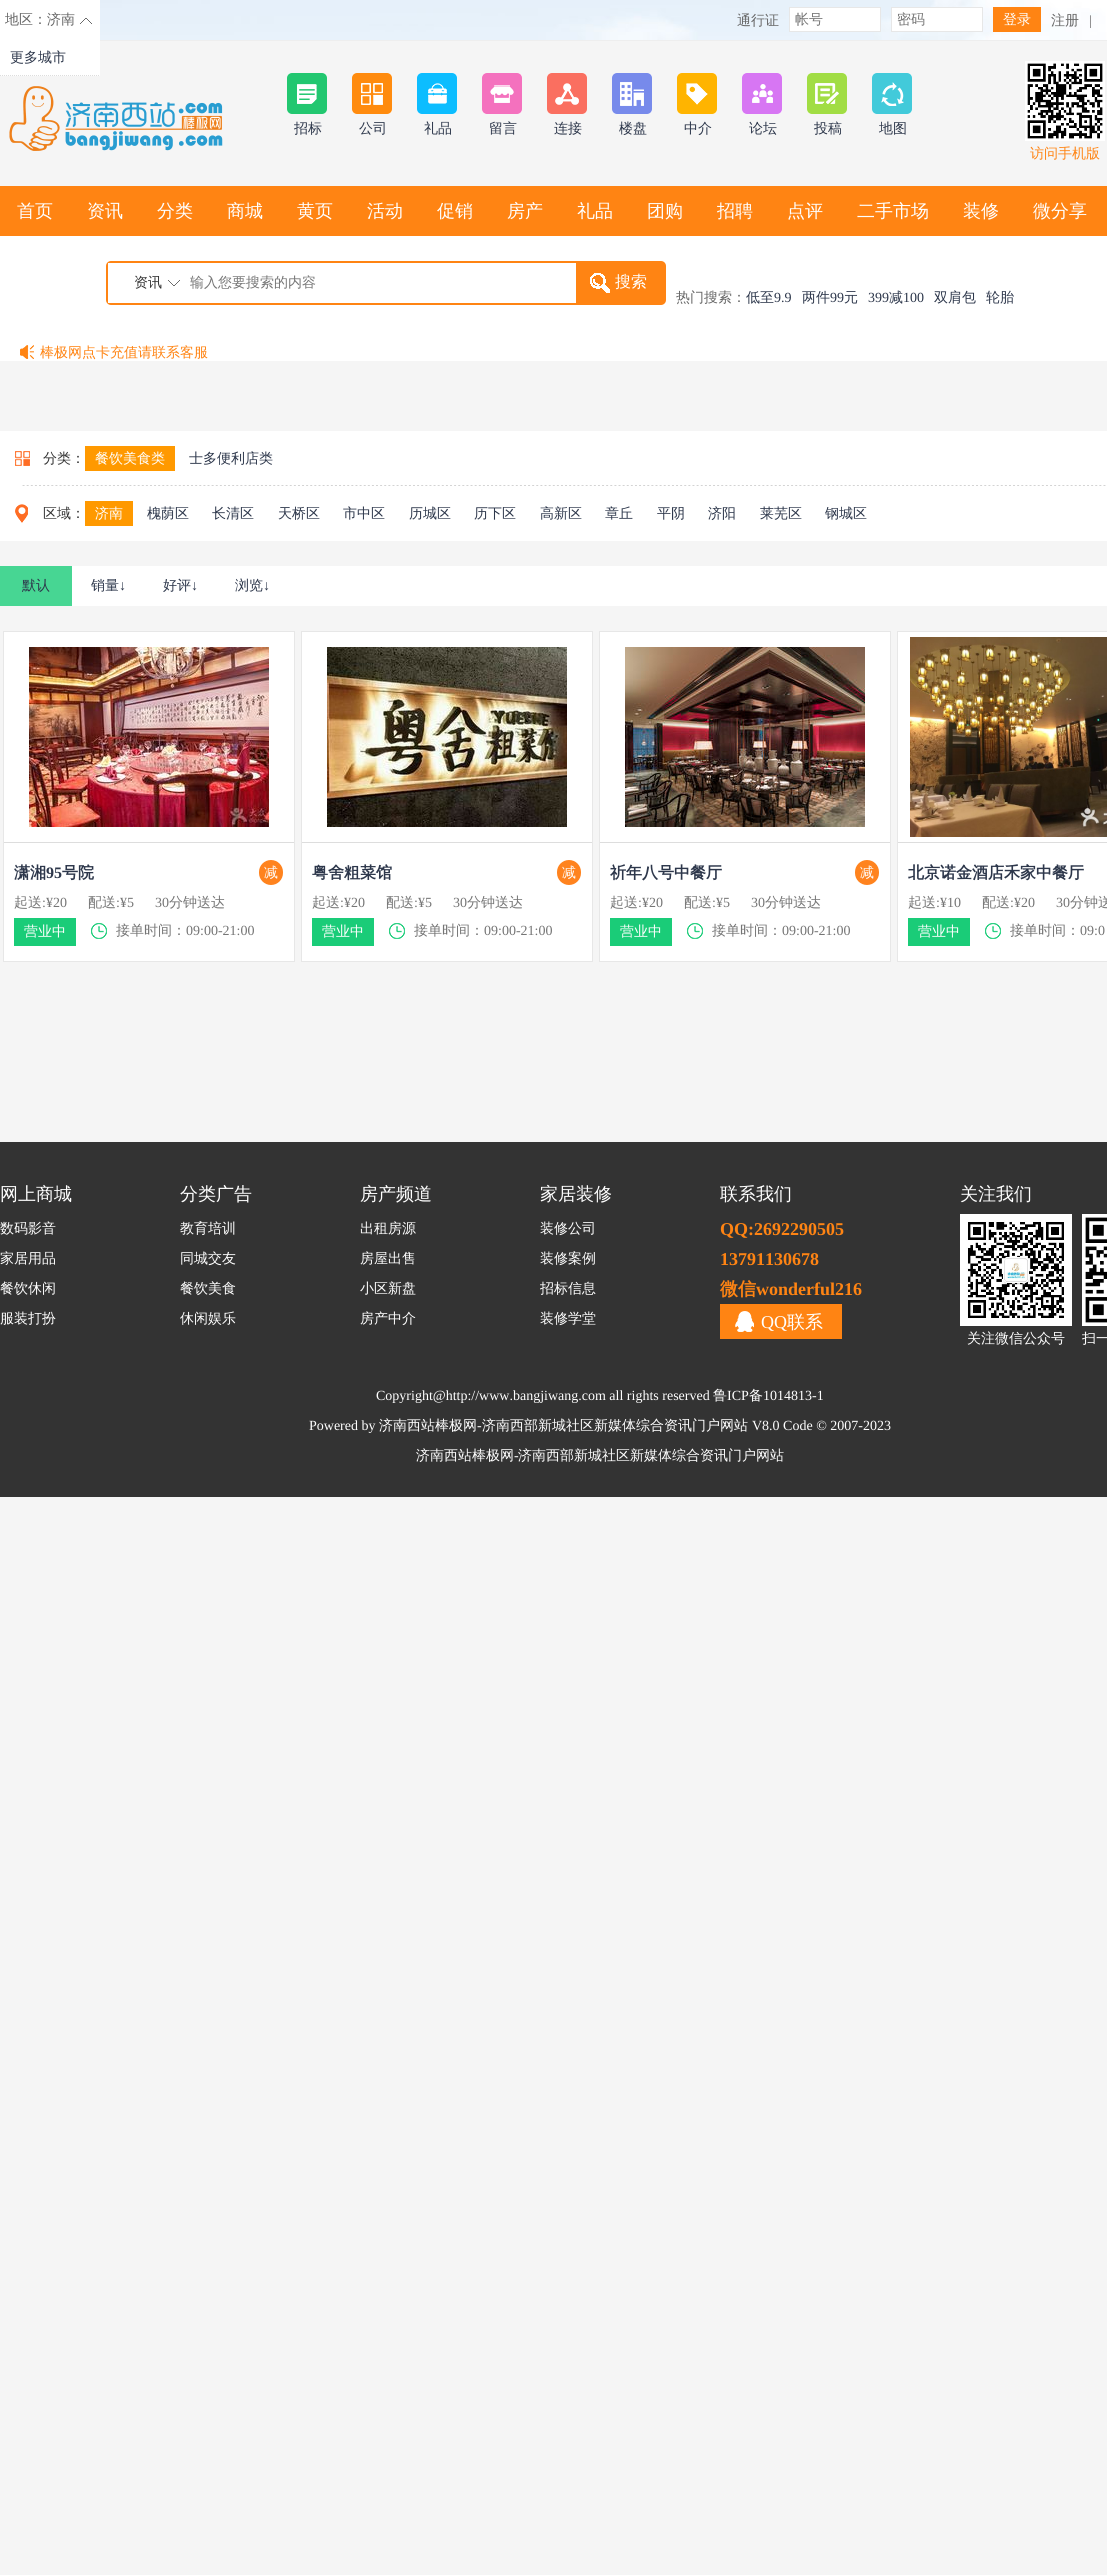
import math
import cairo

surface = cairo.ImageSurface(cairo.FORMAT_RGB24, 1107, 2575)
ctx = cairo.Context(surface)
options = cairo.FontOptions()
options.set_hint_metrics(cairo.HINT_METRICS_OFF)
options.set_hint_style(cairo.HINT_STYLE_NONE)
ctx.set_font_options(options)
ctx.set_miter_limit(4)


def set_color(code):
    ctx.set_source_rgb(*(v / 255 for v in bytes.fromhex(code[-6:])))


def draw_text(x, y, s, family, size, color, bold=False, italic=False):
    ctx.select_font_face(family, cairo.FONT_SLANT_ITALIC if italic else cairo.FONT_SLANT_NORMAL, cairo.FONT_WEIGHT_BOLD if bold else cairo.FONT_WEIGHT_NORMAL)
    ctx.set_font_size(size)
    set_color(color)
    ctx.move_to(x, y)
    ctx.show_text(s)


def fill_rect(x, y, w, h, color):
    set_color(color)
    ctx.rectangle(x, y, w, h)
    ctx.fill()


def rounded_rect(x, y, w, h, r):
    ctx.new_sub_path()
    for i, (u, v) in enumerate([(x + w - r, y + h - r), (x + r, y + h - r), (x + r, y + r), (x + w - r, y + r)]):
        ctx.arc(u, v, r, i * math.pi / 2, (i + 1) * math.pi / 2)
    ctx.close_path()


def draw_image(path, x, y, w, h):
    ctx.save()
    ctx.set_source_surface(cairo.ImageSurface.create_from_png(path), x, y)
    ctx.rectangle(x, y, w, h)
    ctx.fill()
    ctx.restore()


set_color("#f5f5f5")
ctx.paint()
draw_image("assets/img1.png", 100, 0, 1007, 40)
fill_rect(100, 40, 1007, 1, "#eeeeee")
fill_rect(0, 0, 100, 76, "#ffffff")
draw_text(5, 24, "地区：济南", "WenQuanYi Zen Hei Medium", 14, "#666666")
draw_image("assets/img2.png", 80, 18, 12, 6)
ctx.new_path()
ctx.move_to(0, 75.5)
ctx.line_to(100, 75.5)
set_color("#dddddd")
ctx.set_line_width(1)
ctx.set_dash([1, 1])
ctx.stroke()
draw_text(10, 62, "更多城市", "WenQuanYi Zen Hei Medium", 14, "#2d374b")
draw_text(737, 25, "通行证", "WenQuanYi Zen Hei Medium", 14, "#666666")
set_color("#ffffff")
ctx.rectangle(789.5, 7.5, 91, 24)
ctx.fill_preserve()
set_color("#e7e7e7")
ctx.set_dash([])
ctx.stroke()
draw_text(795, 24, "帐号", "WenQuanYi Zen Hei Medium", 14, "#757575")
set_color("#ffffff")
ctx.rectangle(891.5, 7.5, 91, 24)
ctx.fill_preserve()
set_color("#e7e7e7")
ctx.stroke()
draw_text(897, 24, "密码", "WenQuanYi Zen Hei Medium", 14, "#757575")
fill_rect(993, 7, 48, 25, "#ff8413")
draw_text(1003, 24, "登录", "WenQuanYi Zen Hei Medium", 14, "#ffffff")
draw_text(1051, 25, "注册", "WenQuanYi Zen Hei Medium", 14, "#666666")
draw_text(1089, 25, "|", "Liberation Serif", 14, "#666666")
draw_image("assets/img3.png", 9, 86, 214, 65)
draw_image("assets/img4.png", 287, 73, 40, 41)
draw_text(294, 133, "招标", "WenQuanYi Zen Hei Medium", 14, "#2d374b")
draw_image("assets/img5.png", 352, 73, 40, 41)
draw_text(359, 133, "公司", "WenQuanYi Zen Hei Medium", 14, "#2d374b")
draw_image("assets/img6.png", 417, 73, 40, 41)
draw_text(424, 133, "礼品", "WenQuanYi Zen Hei Medium", 14, "#2d374b")
draw_image("assets/img7.png", 482, 73, 40, 41)
draw_text(489, 133, "留言", "WenQuanYi Zen Hei Medium", 14, "#2d374b")
draw_image("assets/img8.png", 547, 73, 40, 41)
draw_text(554, 133, "连接", "WenQuanYi Zen Hei Medium", 14, "#2d374b")
draw_image("assets/img9.png", 612, 73, 40, 41)
draw_text(619, 133, "楼盘", "WenQuanYi Zen Hei Medium", 14, "#2d374b")
draw_image("assets/img10.png", 677, 73, 40, 41)
draw_text(684, 133, "中介", "WenQuanYi Zen Hei Medium", 14, "#2d374b")
draw_image("assets/img11.png", 742, 73, 40, 41)
draw_text(749, 133, "论坛", "WenQuanYi Zen Hei Medium", 14, "#2d374b")
draw_image("assets/img12.png", 807, 73, 40, 41)
draw_text(814, 133, "投稿", "WenQuanYi Zen Hei Medium", 14, "#2d374b")
draw_image("assets/img13.png", 872, 73, 40, 41)
draw_text(879, 133, "地图", "WenQuanYi Zen Hei Medium", 14, "#2d374b")
draw_image("assets/img14.png", 1025, 61, 80, 80)
draw_text(1030, 158, "访问手机版", "WenQuanYi Zen Hei Medium", 14, "#ff8413")
fill_rect(0, 186, 1107, 50, "#ff8413")
draw_text(17, 217, "首页", "WenQuanYi Zen Hei Medium", 18, "#ffffff")
draw_text(87, 217, "资讯", "WenQuanYi Zen Hei Medium", 18, "#ffffff")
draw_text(157, 217, "分类", "WenQuanYi Zen Hei Medium", 18, "#ffffff")
draw_text(227, 217, "商城", "WenQuanYi Zen Hei Medium", 18, "#ffffff")
draw_text(297, 217, "黄页", "WenQuanYi Zen Hei Medium", 18, "#ffffff")
draw_text(367, 217, "活动", "WenQuanYi Zen Hei Medium", 18, "#ffffff")
draw_text(437, 217, "促销", "WenQuanYi Zen Hei Medium", 18, "#ffffff")
draw_text(507, 217, "房产", "WenQuanYi Zen Hei Medium", 18, "#ffffff")
draw_text(577, 217, "礼品", "WenQuanYi Zen Hei Medium", 18, "#ffffff")
draw_text(647, 217, "团购", "WenQuanYi Zen Hei Medium", 18, "#ffffff")
draw_text(717, 217, "招聘", "WenQuanYi Zen Hei Medium", 18, "#ffffff")
draw_text(787, 217, "点评", "WenQuanYi Zen Hei Medium", 18, "#ffffff")
draw_text(857, 217, "二手市场", "WenQuanYi Zen Hei Medium", 18, "#ffffff")
draw_text(963, 217, "装修", "WenQuanYi Zen Hei Medium", 18, "#ffffff")
draw_text(1033, 217, "微分享", "WenQuanYi Zen Hei Medium", 18, "#ffffff")
fill_rect(0, 236, 1107, 125, "#ffffff")
set_color("#ff8413")
rounded_rect(106, 261, 560, 44, 5)
ctx.fill()
fill_rect(108, 263, 468, 40, "#ffffff")
draw_image("assets/img15.png", 168, 280, 12, 6)
draw_text(134, 287, "资讯", "WenQuanYi Zen Hei Medium", 14, "#333333")
draw_text(190, 287, "输入您要搜索的内容", "WenQuanYi Zen Hei Medium", 14, "#757575")
draw_image("assets/img16.png", 590, 273, 20, 20)
draw_text(615, 287, "搜索", "WenQuanYi Zen Hei Medium", 16, "#ffffff")
draw_text(676, 302, "热门搜索：", "WenQuanYi Zen Hei Medium", 14, "#666666")
draw_text(746, 302, "低至", "WenQuanYi Zen Hei Medium", 14, "#2d374b")
draw_text(774, 302, "9.9", "Liberation Serif", 14, "#2d374b")
draw_text(802, 302, "两件", "WenQuanYi Zen Hei Medium", 14, "#2d374b")
draw_text(830, 302, "99", "Liberation Serif", 14, "#2d374b")
draw_text(844, 302, "元", "WenQuanYi Zen Hei Medium", 14, "#2d374b")
draw_text(868, 302, "399", "Liberation Serif", 14, "#2d374b")
draw_text(889, 302, "减", "WenQuanYi Zen Hei Medium", 14, "#2d374b")
draw_text(903, 302, "100", "Liberation Serif", 14, "#2d374b")
draw_text(934, 302, "双肩包", "WenQuanYi Zen Hei Medium", 14, "#2d374b")
draw_text(986, 302, "轮胎", "WenQuanYi Zen Hei Medium", 14, "#2d374b")
draw_image("assets/img17.png", 20, 345, 14, 14)
draw_text(40, 357, "棒极网点卡充值请联系客服", "WenQuanYi Zen Hei Medium", 14, "#ff8413")
fill_rect(0, 431, 1107, 110, "#ffffff")
draw_image("assets/img18.png", 22, 485, 1084, 1)
draw_image("assets/img19.png", 15, 451, 15, 15)
draw_text(43, 463, "分类：", "WenQuanYi Zen Hei Medium", 14, "#333333")
fill_rect(85, 446, 90, 25, "#ff9900")
draw_text(95, 463, "餐饮美食类", "WenQuanYi Zen Hei Medium", 14, "#ffffff")
draw_text(189, 463, "士多便利店类", "WenQuanYi Zen Hei Medium", 14, "#2d374b")
draw_image("assets/img20.png", 15, 504, 13, 19)
draw_text(43, 518, "区域：", "WenQuanYi Zen Hei Medium", 14, "#333333")
fill_rect(85, 501, 48, 25, "#ff9900")
draw_text(95, 518, "济南", "WenQuanYi Zen Hei Medium", 14, "#ffffff")
draw_text(147, 518, "槐荫区", "WenQuanYi Zen Hei Medium", 14, "#2d374b")
draw_text(212, 518, "长清区", "WenQuanYi Zen Hei Medium", 14, "#2d374b")
draw_text(278, 518, "天桥区", "WenQuanYi Zen Hei Medium", 14, "#2d374b")
draw_text(343, 518, "市中区", "WenQuanYi Zen Hei Medium", 14, "#2d374b")
draw_text(409, 518, "历城区", "WenQuanYi Zen Hei Medium", 14, "#2d374b")
draw_text(474, 518, "历下区", "WenQuanYi Zen Hei Medium", 14, "#2d374b")
draw_text(540, 518, "高新区", "WenQuanYi Zen Hei Medium", 14, "#2d374b")
draw_text(605, 518, "章丘", "WenQuanYi Zen Hei Medium", 14, "#2d374b")
draw_text(657, 518, "平阴", "WenQuanYi Zen Hei Medium", 14, "#2d374b")
draw_text(708, 518, "济阳", "WenQuanYi Zen Hei Medium", 14, "#2d374b")
draw_text(760, 518, "莱芜区", "WenQuanYi Zen Hei Medium", 14, "#2d374b")
draw_text(825, 518, "钢城区", "WenQuanYi Zen Hei Medium", 14, "#2d374b")
fill_rect(72, 566, 1035, 40, "#ffffff")
fill_rect(0, 566, 72, 40, "#47d693")
draw_text(22, 590, "默认", "WenQuanYi Zen Hei Medium", 14, "#2d374b")
draw_text(91, 590, "销量", "WenQuanYi Zen Hei Medium", 14, "#2d374b")
draw_text(119, 590, "↓", "Liberation Serif", 14, "#2d374b")
draw_text(163, 590, "好评", "WenQuanYi Zen Hei Medium", 14, "#2d374b")
draw_text(191, 590, "↓", "Liberation Serif", 14, "#2d374b")
draw_text(235, 590, "浏览", "WenQuanYi Zen Hei Medium", 14, "#2d374b")
draw_text(263, 590, "↓", "Liberation Serif", 14, "#2d374b")
set_color("#ffffff")
ctx.rectangle(3.5, 631.5, 291, 330)
ctx.fill_preserve()
set_color("#e7e7e7")
ctx.stroke()
fill_rect(4, 842, 290, 1, "#dddddd")
draw_image("assets/img21.png", 29, 647, 240, 180)
draw_text(14, 878, "潇湘", "WenQuanYi Zen Hei", 16, "#2d374b", bold=True)
draw_text(46, 878, "95", "Liberation Serif", 16, "#2d374b", bold=True)
draw_text(62, 878, "号院", "WenQuanYi Zen Hei", 16, "#2d374b", bold=True)
set_color("#ff831e")
rounded_rect(259, 860, 24, 25, 12)
ctx.fill()
draw_text(264, 877, "减", "WenQuanYi Zen Hei Medium", 14, "#ffffff")
draw_text(14, 907, "起送", "WenQuanYi Zen Hei Medium", 14, "#757575")
draw_text(42, 907, ":¥20", "Liberation Serif", 14, "#757575")
draw_text(88, 907, "配送", "WenQuanYi Zen Hei Medium", 14, "#757575")
draw_text(116, 907, ":¥5      30", "Liberation Serif", 14, "#757575")
draw_text(169, 907, "分钟送达", "WenQuanYi Zen Hei Medium", 14, "#757575")
fill_rect(14, 918, 62, 28, "#1acc78")
draw_text(24, 936, "营业中", "WenQuanYi Zen Hei Medium", 14, "#ffffff")
draw_image("assets/img22.png", 91, 923, 16, 16)
draw_text(116, 935, "接单时间：", "WenQuanYi Zen Hei Medium", 14, "#757575")
draw_text(186, 935, "09:00-21:00", "Liberation Serif", 14, "#757575")
set_color("#ffffff")
ctx.rectangle(301.5, 631.5, 291, 330)
ctx.fill_preserve()
set_color("#e7e7e7")
ctx.stroke()
fill_rect(302, 842, 290, 1, "#dddddd")
draw_image("assets/img23.png", 327, 647, 240, 180)
draw_text(312, 878, "粤舍粗菜馆", "WenQuanYi Zen Hei", 16, "#2d374b", bold=True)
set_color("#ff831e")
rounded_rect(557, 860, 24, 25, 12)
ctx.fill()
draw_text(562, 877, "减", "WenQuanYi Zen Hei Medium", 14, "#ffffff")
draw_text(312, 907, "起送", "WenQuanYi Zen Hei Medium", 14, "#757575")
draw_text(340, 907, ":¥20", "Liberation Serif", 14, "#757575")
draw_text(386, 907, "配送", "WenQuanYi Zen Hei Medium", 14, "#757575")
draw_text(414, 907, ":¥5      30", "Liberation Serif", 14, "#757575")
draw_text(467, 907, "分钟送达", "WenQuanYi Zen Hei Medium", 14, "#757575")
fill_rect(312, 918, 62, 28, "#1acc78")
draw_text(322, 936, "营业中", "WenQuanYi Zen Hei Medium", 14, "#ffffff")
draw_image("assets/img22.png", 389, 923, 16, 16)
draw_text(414, 935, "接单时间：", "WenQuanYi Zen Hei Medium", 14, "#757575")
draw_text(484, 935, "09:00-21:00", "Liberation Serif", 14, "#757575")
set_color("#ffffff")
ctx.rectangle(599.5, 631.5, 291, 330)
ctx.fill_preserve()
set_color("#e7e7e7")
ctx.stroke()
fill_rect(600, 842, 290, 1, "#dddddd")
draw_image("assets/img24.png", 625, 647, 240, 180)
draw_text(610, 878, "祈年八号中餐厅", "WenQuanYi Zen Hei", 16, "#2d374b", bold=True)
set_color("#ff831e")
rounded_rect(855, 860, 24, 25, 12)
ctx.fill()
draw_text(860, 877, "减", "WenQuanYi Zen Hei Medium", 14, "#ffffff")
draw_text(610, 907, "起送", "WenQuanYi Zen Hei Medium", 14, "#757575")
draw_text(638, 907, ":¥20", "Liberation Serif", 14, "#757575")
draw_text(684, 907, "配送", "WenQuanYi Zen Hei Medium", 14, "#757575")
draw_text(712, 907, ":¥5      30", "Liberation Serif", 14, "#757575")
draw_text(765, 907, "分钟送达", "WenQuanYi Zen Hei Medium", 14, "#757575")
fill_rect(610, 918, 62, 28, "#1acc78")
draw_text(620, 936, "营业中", "WenQuanYi Zen Hei Medium", 14, "#ffffff")
draw_image("assets/img22.png", 687, 923, 16, 16)
draw_text(712, 935, "接单时间：", "WenQuanYi Zen Hei Medium", 14, "#757575")
draw_text(782, 935, "09:00-21:00", "Liberation Serif", 14, "#757575")
set_color("#ffffff")
ctx.rectangle(897.5, 631.5, 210, 330)
ctx.fill_preserve()
set_color("#e7e7e7")
ctx.stroke()
fill_rect(898, 842, 209, 1, "#dddddd")
draw_image("assets/img25.png", 910, 637, 197, 200)
draw_text(908, 878, "北京诺金酒店禾家中餐厅", "WenQuanYi Zen Hei", 16, "#2d374b", bold=True)
draw_text(908, 907, "起送", "WenQuanYi Zen Hei Medium", 14, "#757575")
draw_text(936, 907, ":¥10", "Liberation Serif", 14, "#757575")
draw_text(982, 907, "配送", "WenQuanYi Zen Hei Medium", 14, "#757575")
draw_text(1010, 907, ":¥20      30", "Liberation Serif", 14, "#757575")
draw_text(1070, 907, "分钟送", "WenQuanYi Zen Hei Medium", 14, "#757575")
fill_rect(908, 918, 62, 28, "#1acc78")
draw_text(918, 936, "营业中", "WenQuanYi Zen Hei Medium", 14, "#ffffff")
draw_image("assets/img22.png", 985, 923, 16, 16)
draw_text(1010, 935, "接单时间：", "WenQuanYi Zen Hei Medium", 14, "#757575")
draw_text(1080, 935, "09:0", "Liberation Serif", 14, "#757575")
fill_rect(0, 1142, 1107, 355, "#333333")
draw_text(0, 1200, "网上商城", "WenQuanYi Zen Hei Medium", 18, "#ffffff")
draw_text(0, 1233, "数码影音", "WenQuanYi Zen Hei Medium", 14, "#ffffff")
draw_text(0, 1263, "家居用品", "WenQuanYi Zen Hei Medium", 14, "#ffffff")
draw_text(0, 1293, "餐饮休闲", "WenQuanYi Zen Hei Medium", 14, "#ffffff")
draw_text(0, 1323, "服装打扮", "WenQuanYi Zen Hei Medium", 14, "#ffffff")
draw_text(180, 1200, "分类广告", "WenQuanYi Zen Hei Medium", 18, "#ffffff")
draw_text(180, 1233, "教育培训", "WenQuanYi Zen Hei Medium", 14, "#ffffff")
draw_text(180, 1263, "同城交友", "WenQuanYi Zen Hei Medium", 14, "#ffffff")
draw_text(180, 1293, "餐饮美食", "WenQuanYi Zen Hei Medium", 14, "#ffffff")
draw_text(180, 1323, "休闲娱乐", "WenQuanYi Zen Hei Medium", 14, "#ffffff")
draw_text(360, 1200, "房产频道", "WenQuanYi Zen Hei Medium", 18, "#ffffff")
draw_text(360, 1233, "出租房源", "WenQuanYi Zen Hei Medium", 14, "#ffffff")
draw_text(360, 1263, "房屋出售", "WenQuanYi Zen Hei Medium", 14, "#ffffff")
draw_text(360, 1293, "小区新盘", "WenQuanYi Zen Hei Medium", 14, "#ffffff")
draw_text(360, 1323, "房产中介", "WenQuanYi Zen Hei Medium", 14, "#ffffff")
draw_text(540, 1200, "家居装修", "WenQuanYi Zen Hei Medium", 18, "#ffffff")
draw_text(540, 1233, "装修公司", "WenQuanYi Zen Hei Medium", 14, "#ffffff")
draw_text(540, 1263, "装修案例", "WenQuanYi Zen Hei Medium", 14, "#ffffff")
draw_text(540, 1293, "招标信息", "WenQuanYi Zen Hei Medium", 14, "#ffffff")
draw_text(540, 1323, "装修学堂", "WenQuanYi Zen Hei Medium", 14, "#ffffff")
draw_text(720, 1200, "联系我们", "WenQuanYi Zen Hei Medium", 18, "#ffffff")
draw_text(720, 1235, "QQ:2692290505", "Liberation Serif", 18, "#ff8413", bold=True)
draw_text(720, 1265, "13791130678", "Liberation Serif", 18, "#ff8413", bold=True)
draw_text(720, 1295, "微信", "WenQuanYi Zen Hei", 18, "#ff8413", bold=True)
draw_text(756, 1295, "wonderful216", "Liberation Serif", 18, "#ff8413", bold=True)
fill_rect(720, 1304, 122, 35, "#ff8413")
draw_image("assets/img26.png", 735, 1311, 19, 21)
draw_text(761, 1328, "QQ", "Liberation Serif", 18, "#ffffff")
draw_text(787, 1328, "联系", "WenQuanYi Zen Hei Medium", 18, "#ffffff")
draw_text(960, 1200, "关注我们", "WenQuanYi Zen Hei Medium", 18, "#ffffff")
draw_image("assets/img27.png", 960, 1214, 112, 112)
draw_text(967, 1343, "关注微信公众号", "WenQuanYi Zen Hei Medium", 14, "#ffffff")
draw_image("assets/img28.png", 1082, 1214, 25, 112)
draw_text(1082, 1343, "扫一", "WenQuanYi Zen Hei Medium", 14, "#ffffff")
draw_text(376, 1400, "Copyright@http://www.bangjiwang.com all rights reserved", "Liberation Serif", 14, "#ffffff")
draw_text(713, 1400, "鲁", "WenQuanYi Zen Hei Medium", 14, "#ffffff")
draw_text(727, 1400, "ICP", "Liberation Serif", 14, "#ffffff")
draw_text(749, 1400, "备", "WenQuanYi Zen Hei Medium", 14, "#ffffff")
draw_text(763, 1400, "1014813-1", "Liberation Serif", 14, "#ffffff")
draw_text(309, 1430, "Powered by", "Liberation Serif", 14, "#ffffff")
draw_text(379, 1430, "济南西站棒极网", "WenQuanYi Zen Hei Medium", 14, "#ffffff")
draw_text(477, 1430, "-", "Liberation Serif", 14, "#ffffff")
draw_text(482, 1430, "济南西部新城社区新媒体综合资讯门户网站", "WenQuanYi Zen Hei Medium", 14, "#ffffff")
draw_text(752, 1430, "V8.0 Code © 2007-2023", "Liberation Serif", 14, "#ffffff")
draw_text(416, 1460, "济南西站棒极网", "WenQuanYi Zen Hei Medium", 14, "#ffffff")
draw_text(514, 1460, "-", "Liberation Serif", 14, "#ffffff")
draw_text(518, 1460, "济南西部新城社区新媒体综合资讯门户网站", "WenQuanYi Zen Hei Medium", 14, "#ffffff")
surface.write_to_png("output.png")
